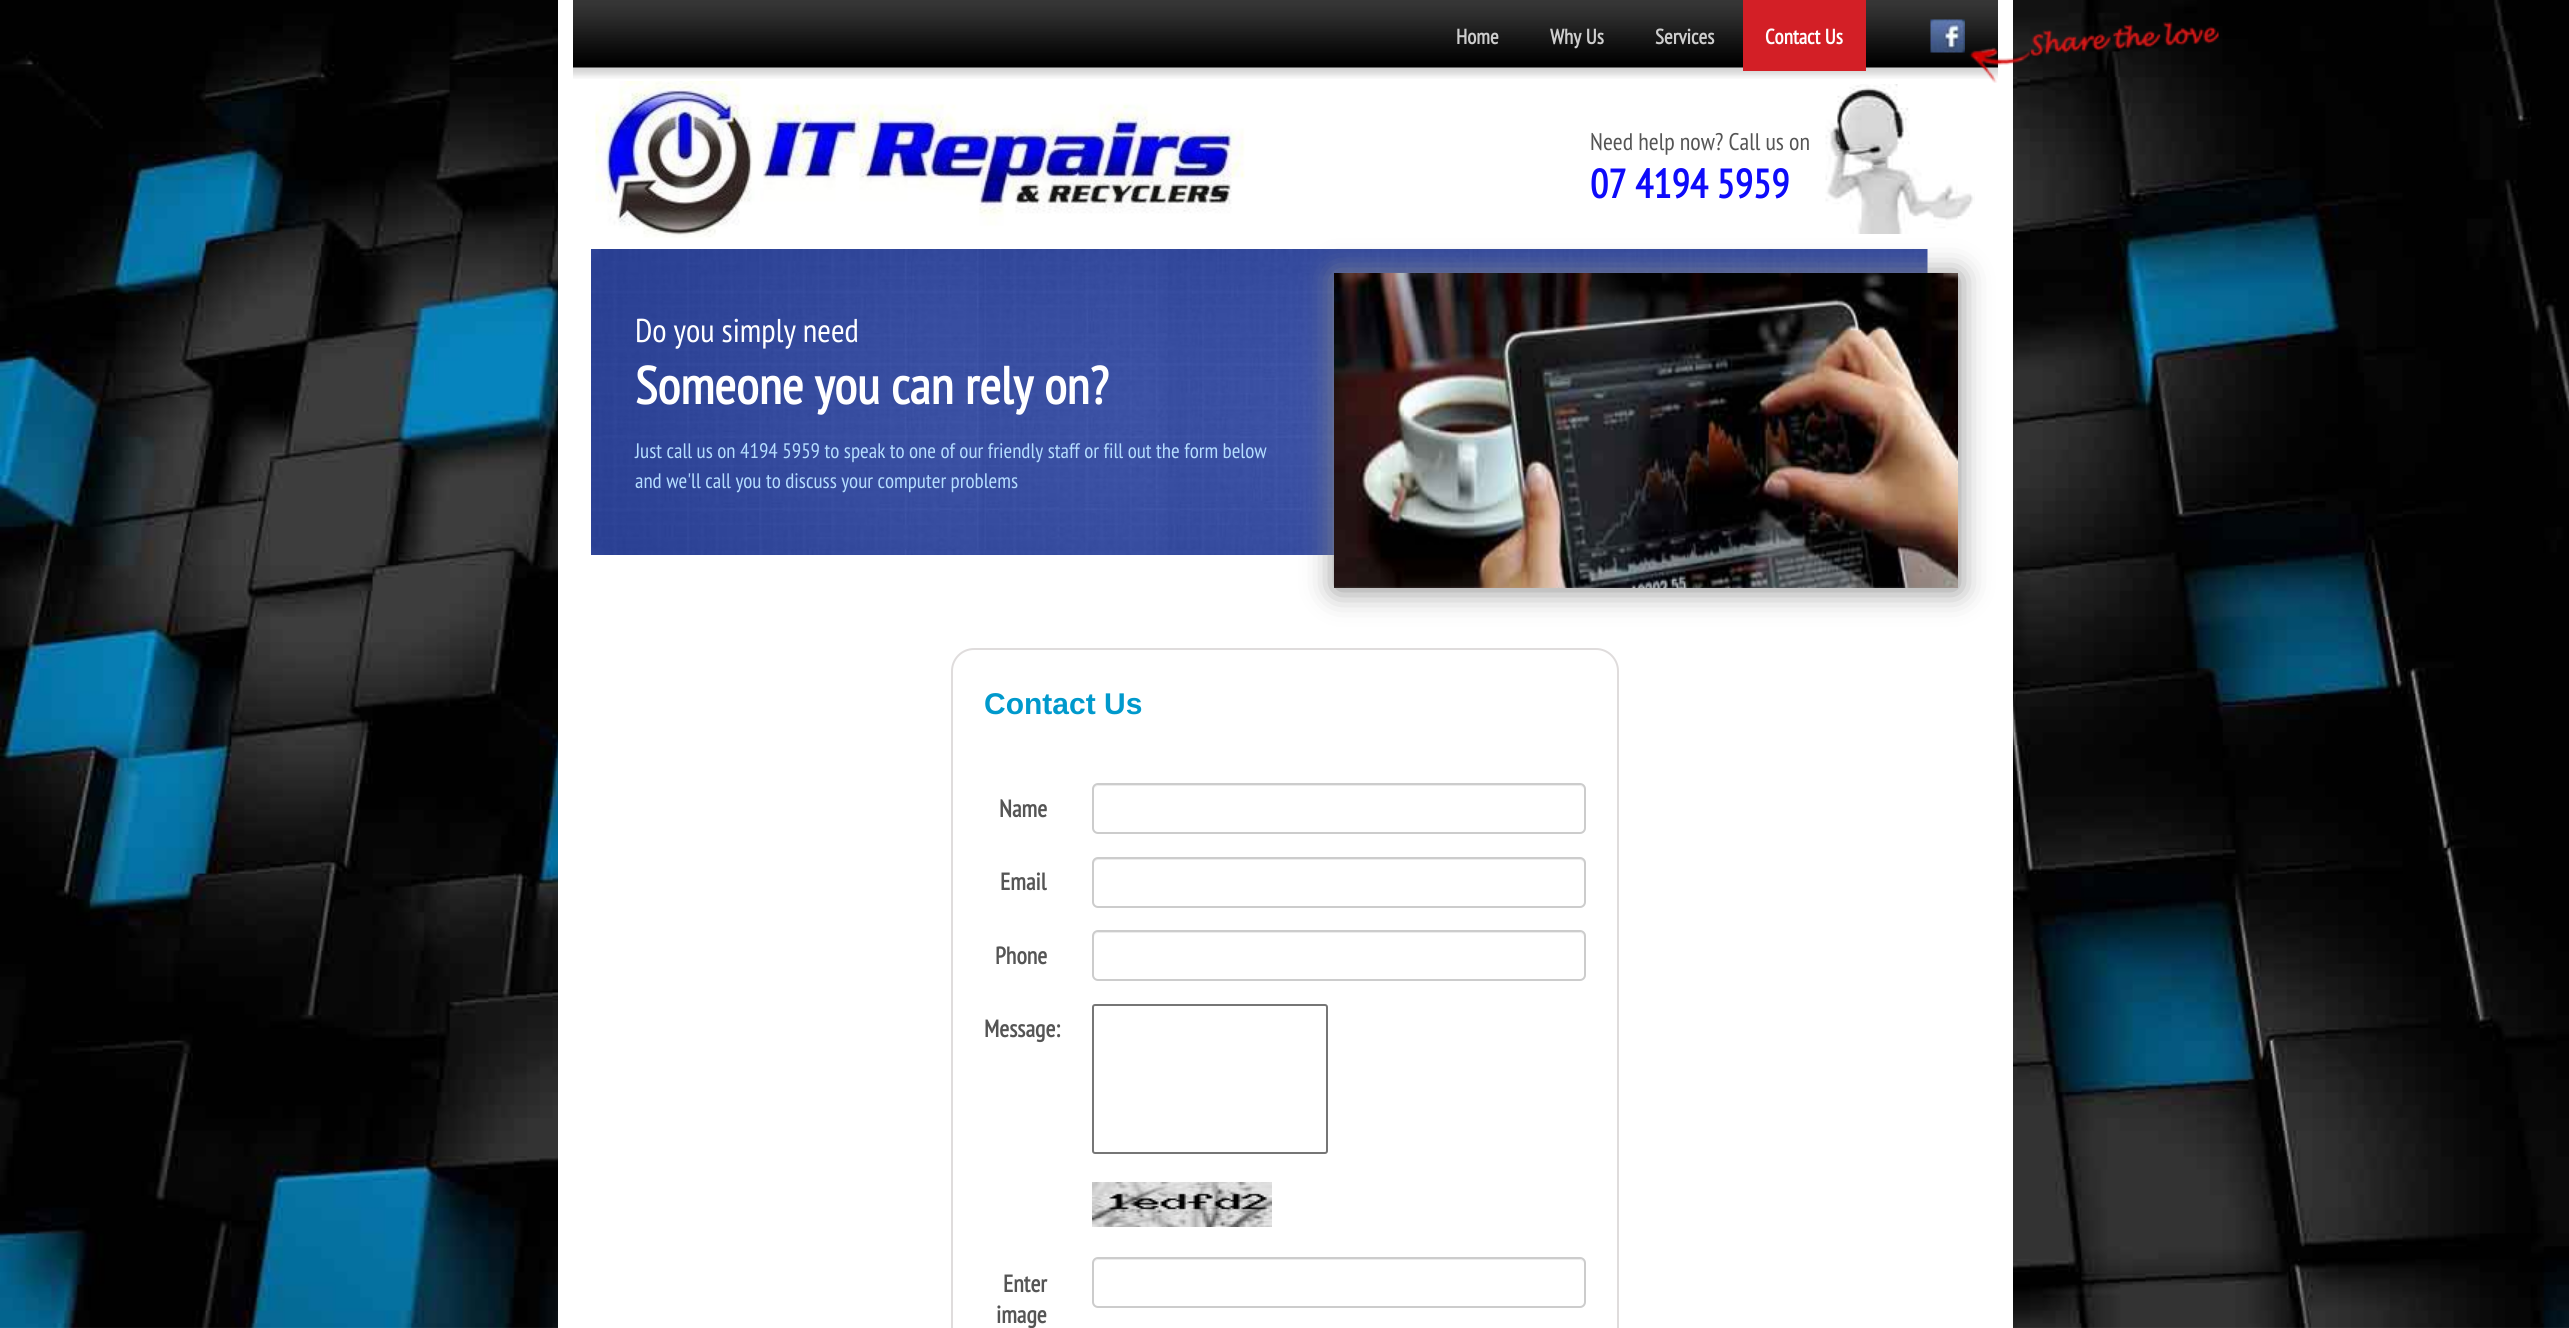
import math
import cairo

surface = cairo.ImageSurface(cairo.FORMAT_RGB24, 2569, 1328)
ctx = cairo.Context(surface)
options = cairo.FontOptions()
options.set_hint_metrics(cairo.HINT_METRICS_OFF)
options.set_hint_style(cairo.HINT_STYLE_NONE)
ctx.set_font_options(options)
ctx.set_miter_limit(4)


def set_color(code):
    ctx.set_source_rgb(*(v / 255 for v in bytes.fromhex(code[-6:])))


def draw_text(x, y, s, family, size, color, bold=False, italic=False):
    ctx.select_font_face(family, cairo.FONT_SLANT_ITALIC if italic else cairo.FONT_SLANT_NORMAL, cairo.FONT_WEIGHT_BOLD if bold else cairo.FONT_WEIGHT_NORMAL)
    ctx.set_font_size(size)
    set_color(color)
    ctx.move_to(x, y)
    ctx.show_text(s)


def fill_rect(x, y, w, h, color):
    set_color(color)
    ctx.rectangle(x, y, w, h)
    ctx.fill()


def rounded_rect(x, y, w, h, r):
    ctx.new_sub_path()
    for i, (u, v) in enumerate([(x + w - r, y + h - r), (x + r, y + h - r), (x + r, y + r), (x + w - r, y + r)]):
        ctx.arc(u, v, r, i * math.pi / 2, (i + 1) * math.pi / 2)
    ctx.close_path()


def draw_shadow(x, y, w, h, r, blur, alpha):
    ctx.push_group_with_content(cairo.CONTENT_ALPHA)
    ctx.set_operator(cairo.OPERATOR_SOURCE)
    for i in range(15, -16, -2):
        e = blur * i / 6
        if min(w, h) + 2 * e > 0:
            ctx.set_source_rgba(0, 0, 0, alpha * math.erfc((i - 1) / 8.5) / 2)
            rounded_rect(x - e, y - e, w + 2 * e, h + 2 * e, max(0, min(r + e + blur * .6, min(w, h) / 2 + e)))
            ctx.fill()
    ctx.mask(ctx.pop_group())


def draw_image(path, x, y, w, h):
    ctx.save()
    ctx.set_source_surface(cairo.ImageSurface.create_from_png(path), x, y)
    ctx.rectangle(x, y, w, h)
    ctx.fill()
    ctx.restore()


set_color("#ffffff")
ctx.paint()
draw_image("assets/img1.png", 0, 0, 2569, 1328)
fill_rect(558, 0, 1455, 1328, "#ffffff")
draw_image("assets/img2.png", 573, 0, 1425, 79)
draw_text(1456, 44, "Home", "PT Sans Narrow", 21, "#cdcdcd", bold=True)
draw_text(1550, 44, "Why Us", "PT Sans Narrow", 21, "#cdcdcd", bold=True)
draw_text(1655, 44, "Services", "PT Sans Narrow", 21, "#cdcdcd", bold=True)
fill_rect(1743, 0, 123, 71, "#d31f26")
draw_text(1765, 44, "Contact Us", "PT Sans Narrow", 21, "#ffffff", bold=True)
draw_image("assets/img3.png", 1930, 19, 35, 34)
draw_image("assets/img4.png", 1969, 22, 250, 61)
draw_image("assets/img5.png", 595, 81, 650, 157)
draw_text(1590, 150, "Need help now? Call us on", "PT Sans Narrow", 24, "#555555")
draw_text(1590, 198, "07 4194 5959", "PT Sans Narrow", 40.5, "#0e0bfa", bold=True)
draw_image("assets/img6.png", 1825, 84, 150, 150)
draw_image("assets/img7.png", 591, 249, 1337, 306)
draw_text(635, 342, "Do you simply need", "PT Sans Narrow", 33, "#ffffff")
draw_text(635, 404, "Someone you can rely on?", "PT Sans Narrow", 52.5, "#ffffff", bold=True)
draw_text(635, 458, "Just call us on 4194 5959 to speak to one of our friendly staff or fill out the form below", "PT Sans Narrow", 21, "#b4ddff")
draw_text(635, 488, "and we'll call you to discuss your computer problems", "PT Sans Narrow", 21, "#b4ddff")
set_color("#888888")
draw_shadow(1335, 275, 624, 315, 0, 15, 1)
draw_image("assets/img8.png", 1334, 273, 624, 315)
rounded_rect(952, 649, 666, 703, 22)
set_color("#dfdcdc")
ctx.stroke()
draw_text(984, 714, "Contact Us", "Liberation Sans", 30, "#0099cc", bold=True)
draw_text(999, 817, "Name", "PT Sans Narrow", 24, "#555555", bold=True)
set_color("#ececec")
ctx.new_path()
ctx.move_to(1098, 786)
ctx.line_to(1580, 786)
ctx.curve_to(1582, 786, 1584, 788, 1584, 790)
ctx.curve_to(1584, 787, 1582, 785, 1579, 785)
ctx.line_to(1099, 785)
ctx.curve_to(1096, 785, 1094, 787, 1094, 790)
ctx.curve_to(1094, 788, 1096, 786, 1098, 786)
ctx.close_path()
ctx.fill()
rounded_rect(1093, 784, 492, 49, 5)
set_color("#cccccc")
ctx.stroke()
draw_text(1000, 890, "Email", "PT Sans Narrow", 24, "#555555", bold=True)
set_color("#ececec")
ctx.new_path()
ctx.move_to(1098, 860)
ctx.line_to(1580, 860)
ctx.curve_to(1582, 860, 1584, 862, 1584, 864)
ctx.line_to(1584, 863)
ctx.curve_to(1584, 860, 1582, 858, 1579, 858)
ctx.line_to(1099, 858)
ctx.curve_to(1096, 858, 1094, 860, 1094, 863)
ctx.line_to(1094, 864)
ctx.curve_to(1094, 862, 1096, 860, 1098, 860)
ctx.close_path()
ctx.fill()
rounded_rect(1093, 858, 492, 49, 5)
set_color("#cccccc")
ctx.stroke()
draw_text(995, 964, "Phone", "PT Sans Narrow", 24, "#555555", bold=True)
set_color("#ececec")
ctx.new_path()
ctx.move_to(1098, 933)
ctx.line_to(1580, 933)
ctx.curve_to(1582, 933, 1584, 935, 1584, 938)
ctx.line_to(1584, 937)
ctx.curve_to(1584, 934, 1582, 932, 1579, 932)
ctx.line_to(1099, 932)
ctx.curve_to(1096, 932, 1094, 934, 1094, 937)
ctx.line_to(1094, 938)
ctx.curve_to(1094, 935, 1096, 933, 1098, 933)
ctx.close_path()
ctx.fill()
rounded_rect(1093, 931, 492, 49, 5)
set_color("#cccccc")
ctx.stroke()
draw_text(984, 1037, "Message:", "PT Sans Narrow", 24, "#555555", bold=True)
rounded_rect(1093, 1005, 234, 148, 2)
set_color("#767676")
ctx.stroke()
draw_image("assets/img9.png", 1092, 1182, 180, 45)
draw_text(1003, 1292, "Enter", "PT Sans Narrow", 24, "#555555", bold=True)
draw_text(996, 1323, "image", "PT Sans Narrow", 24, "#555555", bold=True)
set_color("#ececec")
ctx.new_path()
ctx.move_to(1098, 1260)
ctx.line_to(1580, 1260)
ctx.curve_to(1582, 1260, 1584, 1262, 1584, 1264)
ctx.curve_to(1584, 1261, 1582, 1259, 1579, 1259)
ctx.line_to(1099, 1259)
ctx.curve_to(1096, 1259, 1094, 1261, 1094, 1264)
ctx.curve_to(1094, 1262, 1096, 1260, 1098, 1260)
ctx.close_path()
ctx.fill()
rounded_rect(1093, 1258, 492, 49, 5)
set_color("#cccccc")
ctx.stroke()
surface.write_to_png("output.png")
